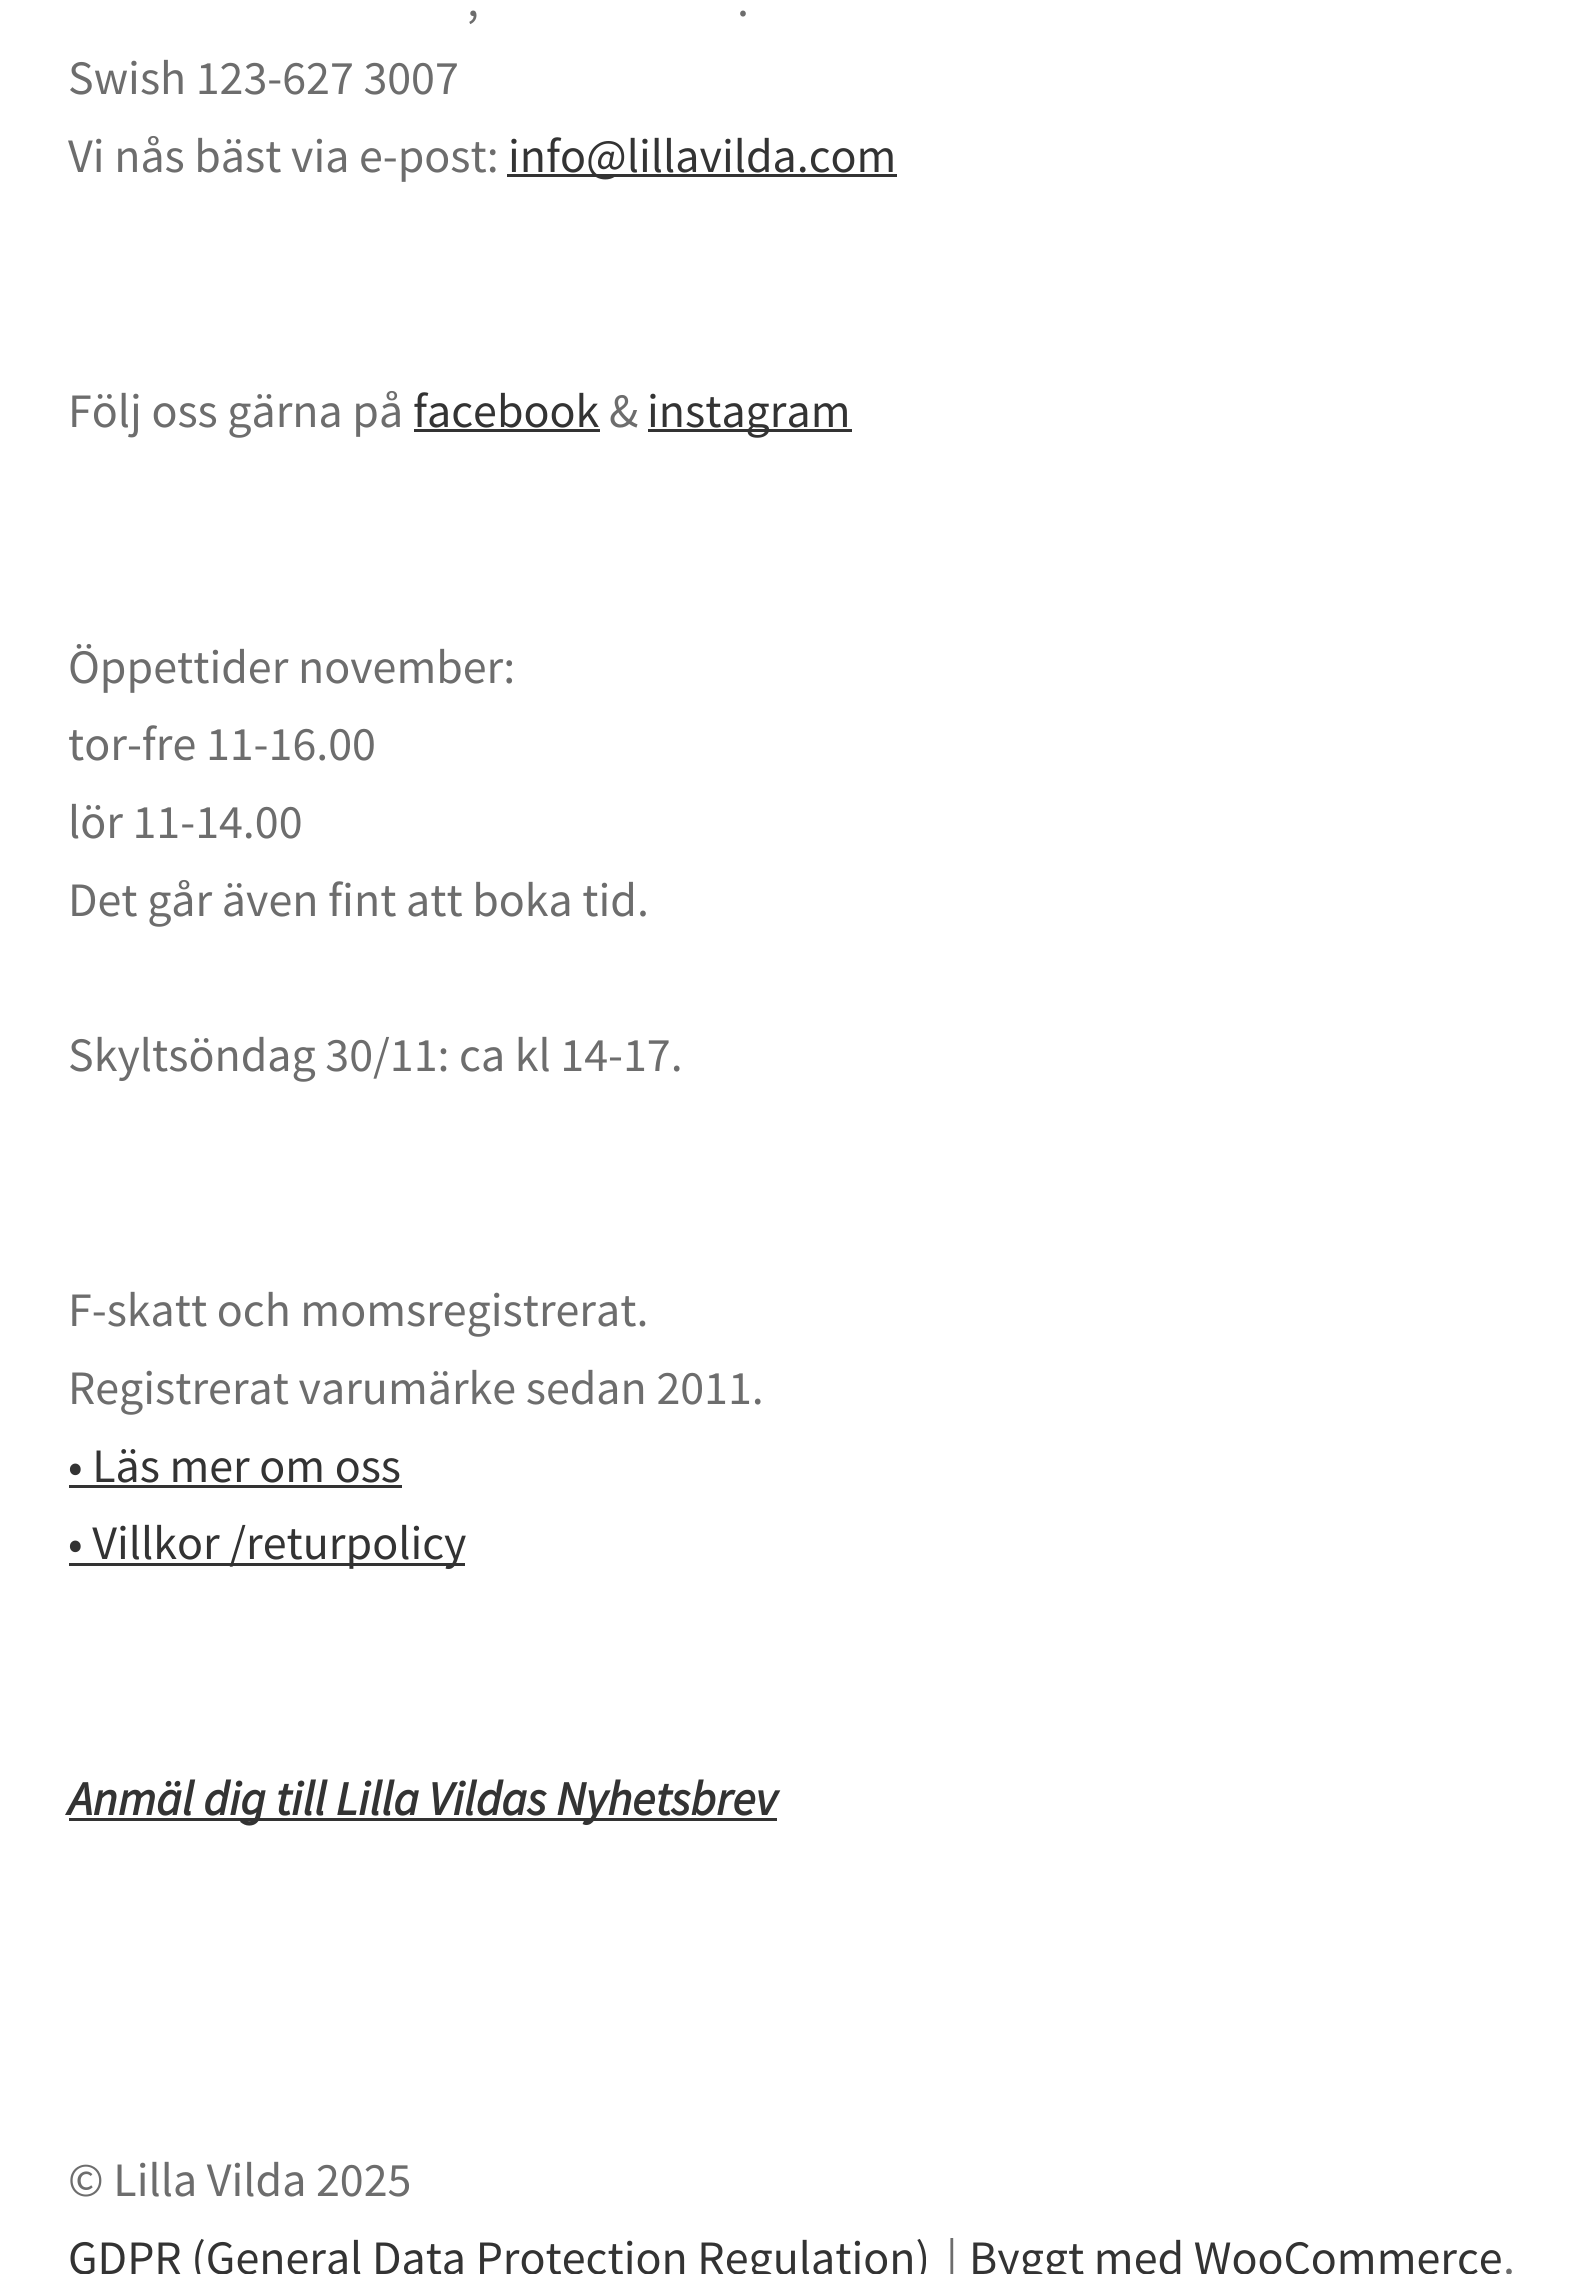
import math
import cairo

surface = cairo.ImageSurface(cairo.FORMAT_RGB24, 1582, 2274)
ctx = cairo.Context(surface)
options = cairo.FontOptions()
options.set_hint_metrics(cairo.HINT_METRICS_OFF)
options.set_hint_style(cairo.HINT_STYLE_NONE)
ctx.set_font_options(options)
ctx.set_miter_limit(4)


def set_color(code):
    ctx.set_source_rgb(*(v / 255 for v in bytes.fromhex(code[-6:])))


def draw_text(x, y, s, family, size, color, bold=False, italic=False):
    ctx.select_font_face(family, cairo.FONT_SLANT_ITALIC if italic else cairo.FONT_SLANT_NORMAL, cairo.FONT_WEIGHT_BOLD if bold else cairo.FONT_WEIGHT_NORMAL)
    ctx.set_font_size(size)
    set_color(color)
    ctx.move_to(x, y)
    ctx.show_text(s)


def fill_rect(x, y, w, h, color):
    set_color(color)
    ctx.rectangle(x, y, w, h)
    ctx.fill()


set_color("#ffffff")
ctx.paint()
draw_text(467, 16, ",", "Source Sans Pro", 48, "#6d6d6d")
draw_text(737, 16, ".", "Source Sans Pro", 48, "#6d6d6d")
draw_text(68, 94, "Swish 123-627 3007", "Source Sans Pro", 48, "#6d6d6d")
draw_text(68, 172, "Vi nås bäst via e-post:", "Source Sans Pro", 48, "#6d6d6d")
fill_rect(507, 174, 390, 3, "#333333")
draw_text(508, 172, "info@lillavilda.com", "Source Sans Pro", 48, "#333333")
draw_text(68, 427, "Följ oss gärna på", "Source Sans Pro", 48, "#6d6d6d")
draw_text(413, 427, "facebook", "Source Sans Pro", 48, "#333333")
fill_rect(414, 429, 186, 3, "#333333")
draw_text(609, 427, "&", "Source Sans Pro", 48, "#6d6d6d")
fill_rect(648, 429, 204, 3, "#333333")
draw_text(647, 427, "instagram", "Source Sans Pro", 48, "#333333")
draw_text(68, 683, "Öppettider november:", "Source Sans Pro", 48, "#6d6d6d")
draw_text(68, 760, "tor-fre 11-16.00", "Source Sans Pro", 48, "#6d6d6d")
draw_text(68, 838, "lör 11-14.00", "Source Sans Pro", 48, "#6d6d6d")
draw_text(68, 916, "Det går även fint att boka tid.", "Source Sans Pro", 48, "#6d6d6d")
draw_text(68, 1071, "Skyltsöndag 30/11: ca kl 14-17.", "Source Sans Pro", 48, "#6d6d6d")
draw_text(68, 1326, "F-skatt och momsregistrerat.", "Source Sans Pro", 48, "#6d6d6d")
draw_text(68, 1404, "Registrerat varumärke sedan 2011.", "Source Sans Pro", 48, "#6d6d6d")
draw_text(68, 1482, "• Läs mer om oss", "Source Sans Pro", 48, "#333333")
fill_rect(69, 1485, 333, 3, "#333333")
fill_rect(69, 1563, 396, 3, "#333333")
draw_text(68, 1559, "• Villkor /returpolicy", "Source Sans Pro", 48, "#333333")
fill_rect(69, 1818, 708, 3, "#333333")
draw_text(68, 1815, "Anmäl dig till Lilla Vildas Nyhetsbrev", "Source Sans Pro", 48, "#333333", bold=True, italic=True)
draw_text(68, 2196, "© Lilla Vilda 2025", "Source Sans Pro", 48, "#6d6d6d")
draw_text(68, 2274, "GDPR (General Data Protection Regulation)", "Source Sans Pro", 48, "#333333")
draw_text(946, 2274, "|", "Source Sans Pro", 48, "#6d6d6d")
draw_text(969, 2274, "Byggt med WooCommerce", "Source Sans Pro", 48, "#333333")
draw_text(1503, 2274, ".", "Source Sans Pro", 48, "#6d6d6d")
surface.write_to_png("output.png")
